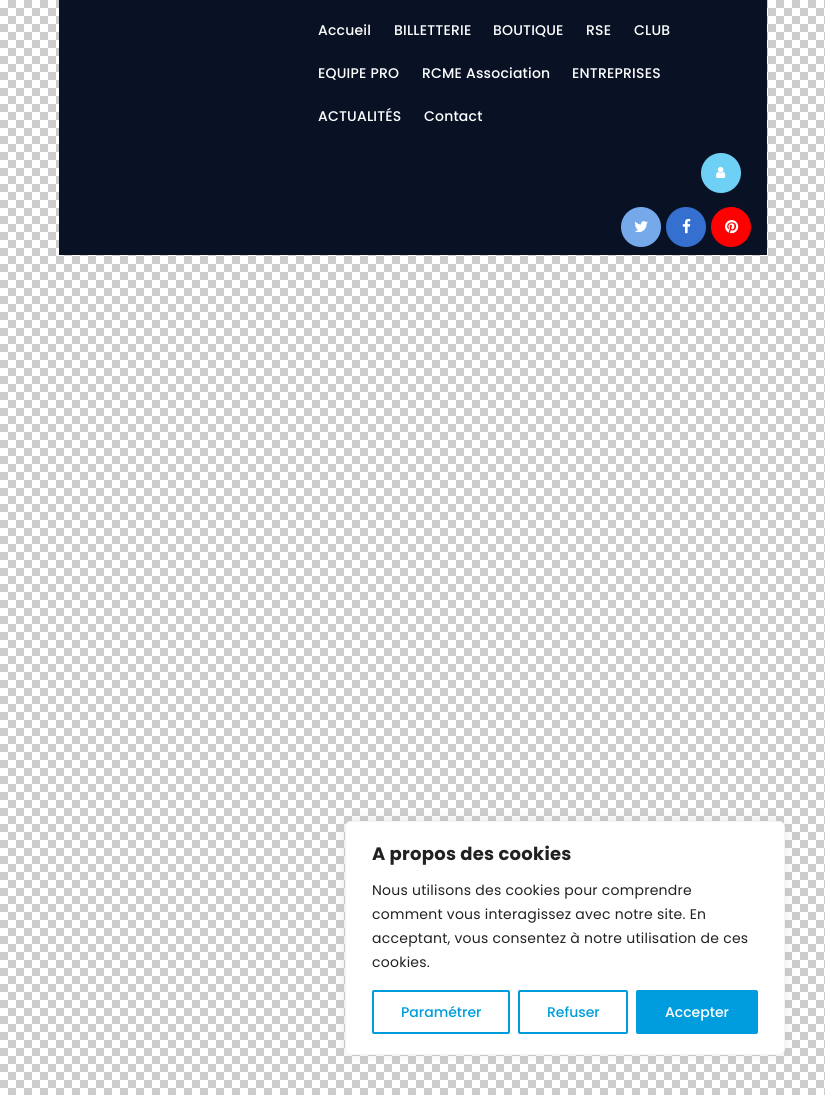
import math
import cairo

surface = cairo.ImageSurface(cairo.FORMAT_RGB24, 825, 1095)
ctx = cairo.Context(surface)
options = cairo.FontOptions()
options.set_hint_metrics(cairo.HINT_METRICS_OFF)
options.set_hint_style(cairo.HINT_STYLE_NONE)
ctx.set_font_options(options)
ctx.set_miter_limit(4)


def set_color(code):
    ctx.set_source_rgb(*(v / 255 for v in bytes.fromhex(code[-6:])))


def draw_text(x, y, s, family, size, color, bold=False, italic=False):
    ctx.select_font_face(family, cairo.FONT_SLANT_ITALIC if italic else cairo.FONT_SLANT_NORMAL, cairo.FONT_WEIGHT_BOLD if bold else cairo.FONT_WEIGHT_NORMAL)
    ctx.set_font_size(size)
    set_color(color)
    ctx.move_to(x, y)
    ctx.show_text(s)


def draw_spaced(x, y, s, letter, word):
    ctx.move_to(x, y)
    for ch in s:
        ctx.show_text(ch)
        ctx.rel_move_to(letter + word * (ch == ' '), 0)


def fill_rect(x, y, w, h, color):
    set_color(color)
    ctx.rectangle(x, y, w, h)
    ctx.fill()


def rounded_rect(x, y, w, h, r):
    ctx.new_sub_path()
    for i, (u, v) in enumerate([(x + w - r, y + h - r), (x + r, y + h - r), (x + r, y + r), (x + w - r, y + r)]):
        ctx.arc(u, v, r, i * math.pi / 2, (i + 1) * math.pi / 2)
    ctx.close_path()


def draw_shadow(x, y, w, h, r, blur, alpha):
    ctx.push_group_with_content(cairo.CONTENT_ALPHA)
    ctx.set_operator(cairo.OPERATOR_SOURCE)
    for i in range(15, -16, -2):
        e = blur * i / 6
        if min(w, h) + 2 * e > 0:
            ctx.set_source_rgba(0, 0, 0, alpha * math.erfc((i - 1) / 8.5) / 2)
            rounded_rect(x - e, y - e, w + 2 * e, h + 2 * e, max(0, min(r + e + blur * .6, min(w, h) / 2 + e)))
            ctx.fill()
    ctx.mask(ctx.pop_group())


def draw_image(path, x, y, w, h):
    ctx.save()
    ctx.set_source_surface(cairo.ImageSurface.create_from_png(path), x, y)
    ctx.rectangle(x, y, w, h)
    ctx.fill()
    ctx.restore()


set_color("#ffffff")
ctx.paint()
draw_image("assets/img1.png", 0, 0, 825, 1095)
fill_rect(59, 0, 708, 255, "#081224")
ctx.select_font_face("Poppins Medium")
ctx.set_font_size(14)
set_color("#ffffff")
draw_spaced(318, 35, "Accueil", 0.2, 0)
draw_spaced(394, 35, "BILLETTERIE", 0.2, 0)
draw_spaced(493, 35, "BOUTIQUE", 0.2, 0)
draw_spaced(586, 35, "RSE", 0.2, 0)
draw_spaced(634, 35, "CLUB", 0.2, 0)
draw_spaced(318, 78, "EQUIPE PRO", 0.2, 0)
draw_spaced(422, 78, "RCME Association", 0.2, 0)
draw_spaced(572, 78, "ENTREPRISES", 0.2, 0)
draw_spaced(318, 121, "ACTUALITÉS", 0.2, 0)
draw_spaced(424, 121, "Contact", 0.2, 0)
set_color("#6ed0f4")
ctx.new_path()
ctx.arc(721, 173, 20, 0, 2 * math.pi)
ctx.fill()
draw_image("assets/img2.png", 716, 166, 10, 12)
set_color("#76a9ea")
ctx.arc(641, 227, 20, 0, 2 * math.pi)
ctx.fill()
draw_image("assets/img3.png", 634, 221, 14, 12)
set_color("#356fcf")
ctx.arc(686, 227, 20, 0, 2 * math.pi)
ctx.fill()
draw_image("assets/img4.png", 682, 218, 9, 16)
set_color("#ff0000")
ctx.arc(731, 227, 20, 0, 2 * math.pi)
ctx.fill()
draw_image("assets/img5.png", 725, 220, 14, 14)
set_color("#acabab")
draw_shadow(345, 820, 440, 234, 6, 5, 0.3)
set_color("#ffffff")
rounded_rect(345.5, 821.5, 439, 233, 5.5)
ctx.fill_preserve()
set_color("#f4f4f4")
ctx.set_line_width(1)
ctx.stroke()
ctx.select_font_face("Poppins", cairo.FONT_SLANT_NORMAL, cairo.FONT_WEIGHT_BOLD)
ctx.set_font_size(18)
set_color("#212121")
draw_spaced(372, 860, "A propos des cookies", 0.25, 0)
ctx.select_font_face("Poppins")
ctx.set_font_size(14)
draw_spaced(372, 895, "Nous utilisons des cookies pour comprendre", 0.25, 0)
draw_spaced(372, 919, "comment vous interagissez avec notre site. En", 0.25, 0)
draw_spaced(372, 943, "acceptant, vous consentez à notre utilisation de ces", 0.25, 0)
draw_spaced(372, 967, "cookies.", 0.25, 0)
rounded_rect(373, 991, 136, 42, 1)
set_color("#009dde")
ctx.set_line_width(2)
ctx.stroke()
draw_text(401, 1017, "Paramétrer", "Poppins Medium", 14, "#009dde")
rounded_rect(519, 991, 108, 42, 1)
ctx.stroke()
draw_text(547, 1017, "Refuser", "Poppins Medium", 14, "#009dde")
rounded_rect(637, 991, 120, 42, 1)
ctx.fill_preserve()
ctx.stroke()
draw_text(665, 1017, "Accepter", "Poppins Medium", 14, "#ffffff")
surface.write_to_png("output.png")
